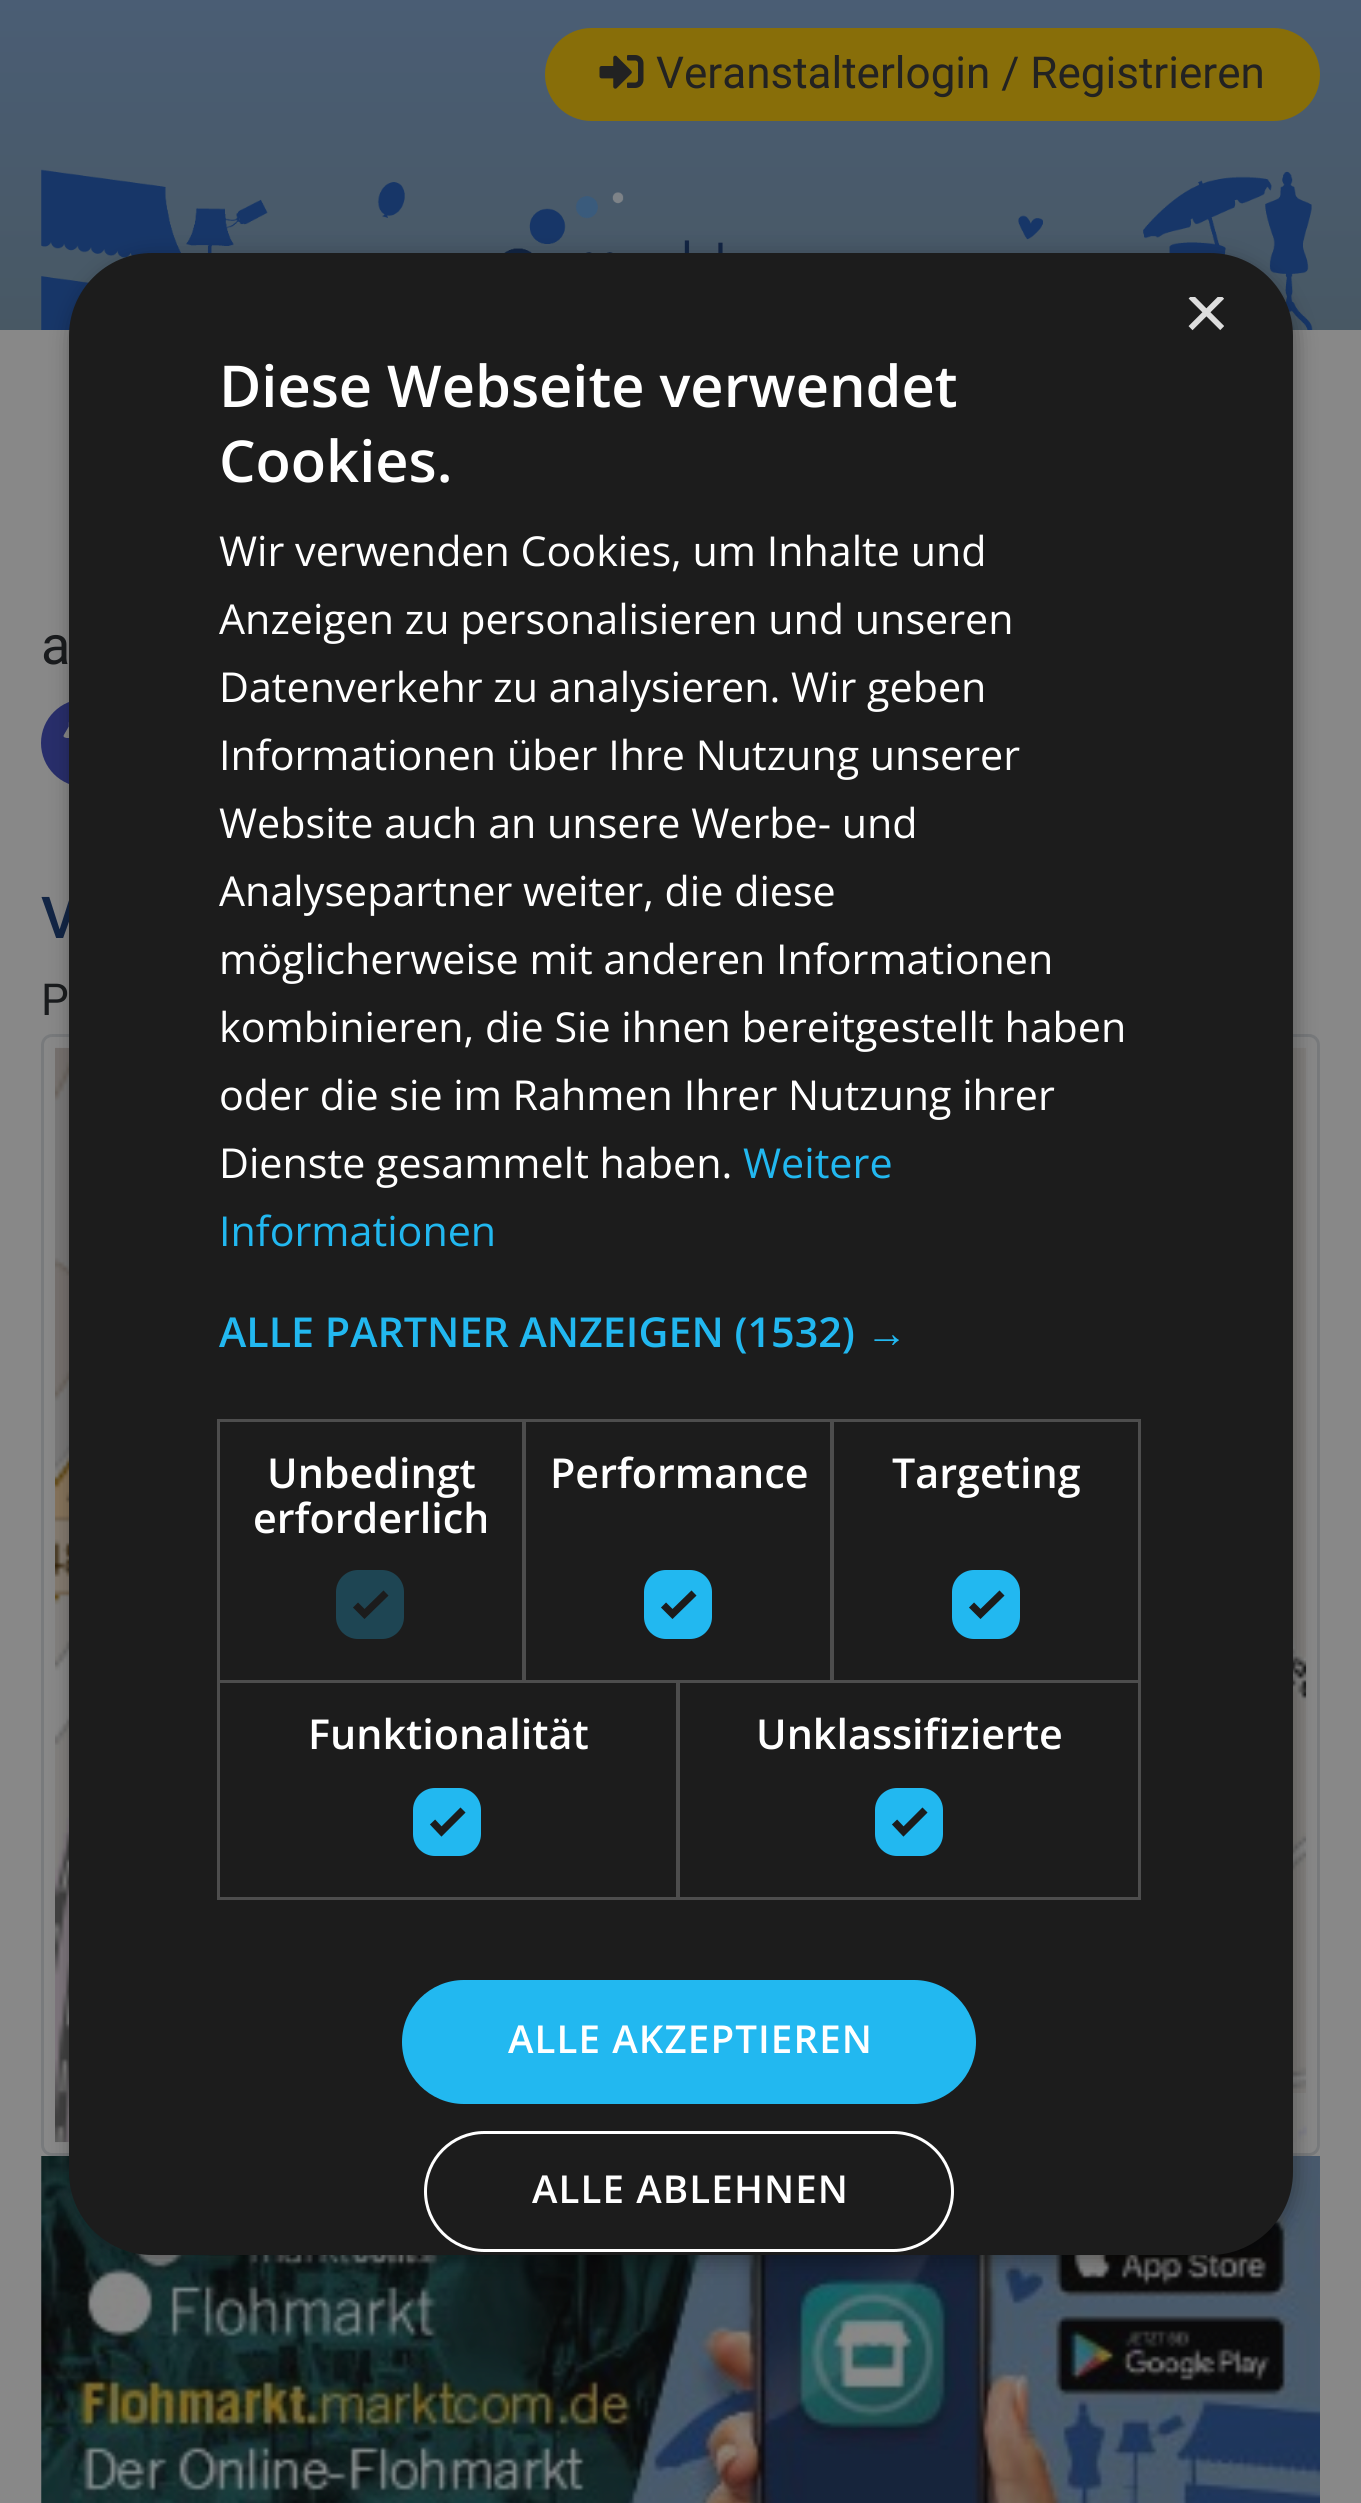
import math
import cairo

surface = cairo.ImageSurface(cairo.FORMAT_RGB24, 1361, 2503)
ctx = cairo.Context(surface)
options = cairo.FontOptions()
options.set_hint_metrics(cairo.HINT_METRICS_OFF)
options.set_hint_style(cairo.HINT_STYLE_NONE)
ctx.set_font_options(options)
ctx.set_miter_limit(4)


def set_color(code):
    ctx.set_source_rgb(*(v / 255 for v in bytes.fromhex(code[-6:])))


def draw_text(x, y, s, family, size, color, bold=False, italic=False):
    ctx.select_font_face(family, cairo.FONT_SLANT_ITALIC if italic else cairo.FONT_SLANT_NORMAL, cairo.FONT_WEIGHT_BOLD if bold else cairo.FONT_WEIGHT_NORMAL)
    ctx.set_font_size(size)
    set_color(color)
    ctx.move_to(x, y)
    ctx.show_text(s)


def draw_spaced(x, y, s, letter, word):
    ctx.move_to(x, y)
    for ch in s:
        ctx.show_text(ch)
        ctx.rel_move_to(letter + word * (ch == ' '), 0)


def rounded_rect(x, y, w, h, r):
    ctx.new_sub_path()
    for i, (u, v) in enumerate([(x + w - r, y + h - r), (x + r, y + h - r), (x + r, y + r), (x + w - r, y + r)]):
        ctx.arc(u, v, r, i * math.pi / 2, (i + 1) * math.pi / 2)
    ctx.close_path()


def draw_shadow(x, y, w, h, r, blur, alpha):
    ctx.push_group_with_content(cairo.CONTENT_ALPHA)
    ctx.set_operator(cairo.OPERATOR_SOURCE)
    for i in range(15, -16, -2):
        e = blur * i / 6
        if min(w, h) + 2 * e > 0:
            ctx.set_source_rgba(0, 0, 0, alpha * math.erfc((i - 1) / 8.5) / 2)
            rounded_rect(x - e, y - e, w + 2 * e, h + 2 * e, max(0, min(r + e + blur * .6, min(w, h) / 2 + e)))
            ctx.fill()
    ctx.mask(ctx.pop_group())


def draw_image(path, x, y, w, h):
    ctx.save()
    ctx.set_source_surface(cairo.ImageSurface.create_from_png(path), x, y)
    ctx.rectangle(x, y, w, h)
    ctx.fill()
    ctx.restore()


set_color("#888888")
ctx.paint()
gradient = cairo.LinearGradient(681, 0, 681, 330)
gradient.add_color_stop_rgba(0, 0.29, 0.365, 0.455, 1)
gradient.add_color_stop_rgba(1, 0.282, 0.345, 0.392, 1)
ctx.set_source(gradient)
ctx.rectangle(0, 0, 1361, 330)
ctx.fill()
set_color("#886e09")
rounded_rect(545, 28, 775, 93, 46.5)
ctx.fill()
draw_image("assets/img1.png", 599, 55, 45, 34)
draw_text(656, 88, "Veranstalterlogin / Registrieren", "Roboto", 44, "#222222")
draw_image("assets/img2.png", 41, 169, 364, 161)
draw_image("assets/img3.png", 504, 192, 219, 61)
draw_image("assets/img4.png", 1018, 171, 295, 159)
draw_text(41, 664, "a", "Roboto", 54, "#191b1d")
set_color("#282e6b")
rounded_rect(41, 699, 517, 88, 44)
ctx.fill()
draw_image("assets/img5.png", 63, 722, 6, 16)
draw_text(41, 938, "V", "Roboto Medium", 57.75, "#122545")
draw_text(41, 1015, "P", "Roboto", 44, "#191b1d")
rounded_rect(42.5, 1035.5, 1276, 1119, 9.5)
set_color("#787a7c")
ctx.set_line_width(3)
ctx.stroke()
draw_image("assets/img6.png", 55, 1047, 1252, 1096)
ctx.set_source_rgba(0.533, 0.533, 0.533, 0.9)
ctx.rectangle(1293, 2093, 13, 49)
ctx.fill()
draw_image("assets/img7.png", 41, 2156, 1279, 347)
set_color("#000000")
draw_shadow(72, 259, 1223, 2002, 83, 11, 0.35)
set_color("#1c1c1c")
rounded_rect(69, 253, 1224, 2002, 83)
ctx.fill()
ctx.save()
ctx.rectangle(1183, 297, 41, 41)
ctx.clip()
draw_text(1183, 339, "×", "Liberation Sans", 80, "#dddddd")
ctx.restore()
draw_text(219, 407, "Diese Webseite verwendet", "Open Sans SemiBold", 57.75, "#ffffff")
draw_text(219, 482, "Cookies.", "Open Sans SemiBold", 57.75, "#ffffff")
draw_text(219, 566, "Wir verwenden Cookies, um Inhalte und", "Open Sans", 41.25, "#ffffff")
draw_text(219, 634, "Anzeigen zu personalisieren und unseren", "Open Sans", 41.25, "#ffffff")
draw_text(219, 702, "Datenverkehr zu analysieren. Wir geben", "Open Sans", 41.25, "#ffffff")
draw_text(219, 770, "Informationen über Ihre Nutzung unserer", "Open Sans", 41.25, "#ffffff")
draw_text(219, 838, "Website auch an unsere Werbe- und", "Open Sans", 41.25, "#ffffff")
draw_text(219, 906, "Analysepartner weiter, die diese", "Open Sans", 41.25, "#ffffff")
draw_text(219, 974, "möglicherweise mit anderen Informationen", "Open Sans", 41.25, "#ffffff")
draw_text(219, 1042, "kombinieren, die Sie ihnen bereitgestellt haben", "Open Sans", 41.25, "#ffffff")
draw_text(219, 1110, "oder die sie im Rahmen Ihrer Nutzung ihrer", "Open Sans", 41.25, "#ffffff")
draw_text(219, 1178, "Dienste gesammelt haben.", "Open Sans", 41.25, "#ffffff")
draw_text(743, 1178, "Weitere", "Open Sans", 41.25, "#22b8f0")
draw_text(219, 1246, "Informationen", "Open Sans", 41.25, "#22b8f0")
draw_text(219, 1347, "ALLE PARTNER ANZEIGEN (1532)", "Open Sans SemiBold", 41.25, "#22b8f0")
draw_text(866, 1347, "→", "Liberation Sans", 41.25, "#22b8f0", bold=True)
ctx.rectangle(218.5, 1420.5, 305, 261)
set_color("#4d4d4d")
ctx.stroke()
draw_text(267, 1488, "Unbedingt", "Open Sans SemiBold", 41.25, "#ffffff")
draw_text(253, 1533, "erforderlich", "Open Sans SemiBold", 41.25, "#ffffff")
set_color("#1e4553")
rounded_rect(336, 1570, 68, 69, 22)
ctx.fill()
ctx.new_path()
ctx.move_to(355.5, 1605)
ctx.line_to(364.5, 1614)
ctx.line_to(386, 1593)
set_color("#1c1c1c")
ctx.set_line_width(7.2)
ctx.stroke()
ctx.rectangle(524.5, 1420.5, 307, 261)
set_color("#4d4d4d")
ctx.set_line_width(3)
ctx.stroke()
draw_text(550, 1488, "Performance", "Open Sans SemiBold", 41.25, "#ffffff")
set_color("#22b8f0")
rounded_rect(647, 1573, 62, 63, 19)
ctx.fill_preserve()
ctx.set_line_width(6)
ctx.stroke()
ctx.new_path()
ctx.move_to(663.5, 1605)
ctx.line_to(672.5, 1614)
ctx.line_to(694, 1593)
set_color("#1c1c1c")
ctx.set_line_width(7.2)
ctx.stroke()
ctx.rectangle(832.5, 1420.5, 307, 261)
set_color("#4d4d4d")
ctx.set_line_width(3)
ctx.stroke()
draw_text(892, 1488, "Targeting", "Open Sans SemiBold", 41.25, "#ffffff")
set_color("#22b8f0")
rounded_rect(955, 1573, 62, 63, 19)
ctx.fill_preserve()
ctx.set_line_width(6)
ctx.stroke()
ctx.new_path()
ctx.move_to(971.5, 1605)
ctx.line_to(980.5, 1614)
ctx.line_to(1002, 1593)
set_color("#1c1c1c")
ctx.set_line_width(7.2)
ctx.stroke()
ctx.rectangle(218.5, 1681.5, 459, 217)
set_color("#4d4d4d")
ctx.set_line_width(3)
ctx.stroke()
draw_text(308, 1749, "Funktionalität", "Open Sans SemiBold", 41.25, "#ffffff")
set_color("#22b8f0")
rounded_rect(416, 1791, 62, 62, 19)
ctx.fill_preserve()
ctx.set_line_width(6)
ctx.stroke()
ctx.new_path()
ctx.move_to(432.5, 1822)
ctx.line_to(441.5, 1831.5)
ctx.line_to(463, 1810)
set_color("#1c1c1c")
ctx.set_line_width(7.2)
ctx.stroke()
ctx.rectangle(678.5, 1681.5, 461, 217)
set_color("#4d4d4d")
ctx.set_line_width(3)
ctx.stroke()
draw_text(756, 1749, "Unklassifizierte", "Open Sans SemiBold", 41.25, "#ffffff")
set_color("#22b8f0")
rounded_rect(878, 1791, 62, 62, 19)
ctx.fill_preserve()
ctx.set_line_width(6)
ctx.stroke()
ctx.new_path()
ctx.move_to(894.5, 1822)
ctx.line_to(903.5, 1831.5)
ctx.line_to(925, 1810)
set_color("#1c1c1c")
ctx.set_line_width(7.2)
ctx.stroke()
set_color("#22b8f0")
rounded_rect(402, 1980, 574, 124, 62)
ctx.fill()
ctx.set_font_size(38.5)
set_color("#ffffff")
draw_spaced(508, 2053, "ALLE AKZEPTIEREN", 1.1, 0)
rounded_rect(425.5, 2132.5, 527, 118, 59)
ctx.set_line_width(3)
ctx.stroke()
draw_spaced(532, 2203, "ALLE ABLEHNEN", 1.1, 0)
surface.write_to_png("output.png")
